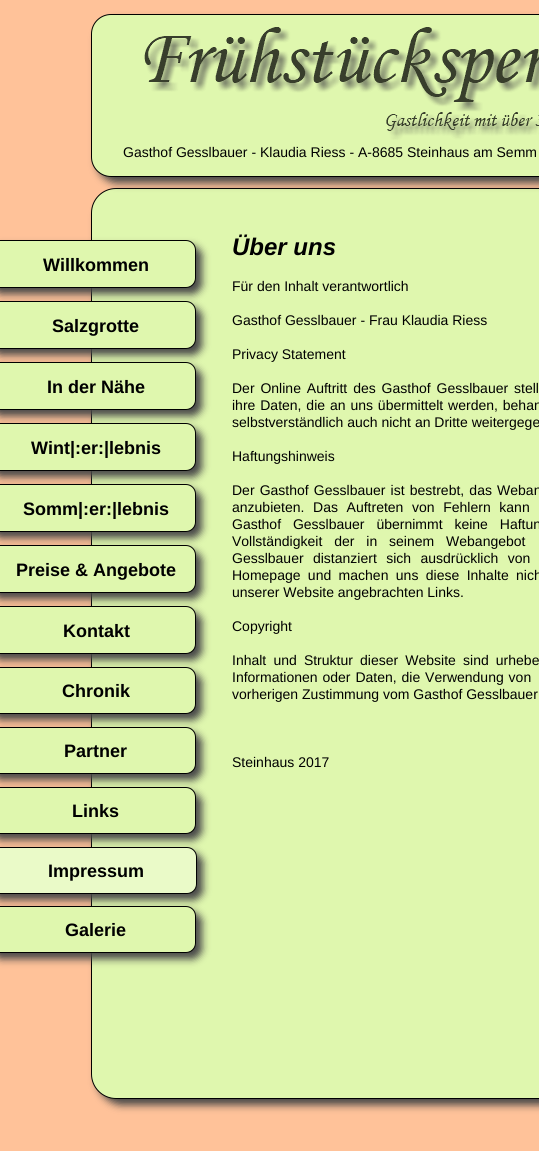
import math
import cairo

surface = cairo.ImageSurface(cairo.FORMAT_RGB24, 539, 1151)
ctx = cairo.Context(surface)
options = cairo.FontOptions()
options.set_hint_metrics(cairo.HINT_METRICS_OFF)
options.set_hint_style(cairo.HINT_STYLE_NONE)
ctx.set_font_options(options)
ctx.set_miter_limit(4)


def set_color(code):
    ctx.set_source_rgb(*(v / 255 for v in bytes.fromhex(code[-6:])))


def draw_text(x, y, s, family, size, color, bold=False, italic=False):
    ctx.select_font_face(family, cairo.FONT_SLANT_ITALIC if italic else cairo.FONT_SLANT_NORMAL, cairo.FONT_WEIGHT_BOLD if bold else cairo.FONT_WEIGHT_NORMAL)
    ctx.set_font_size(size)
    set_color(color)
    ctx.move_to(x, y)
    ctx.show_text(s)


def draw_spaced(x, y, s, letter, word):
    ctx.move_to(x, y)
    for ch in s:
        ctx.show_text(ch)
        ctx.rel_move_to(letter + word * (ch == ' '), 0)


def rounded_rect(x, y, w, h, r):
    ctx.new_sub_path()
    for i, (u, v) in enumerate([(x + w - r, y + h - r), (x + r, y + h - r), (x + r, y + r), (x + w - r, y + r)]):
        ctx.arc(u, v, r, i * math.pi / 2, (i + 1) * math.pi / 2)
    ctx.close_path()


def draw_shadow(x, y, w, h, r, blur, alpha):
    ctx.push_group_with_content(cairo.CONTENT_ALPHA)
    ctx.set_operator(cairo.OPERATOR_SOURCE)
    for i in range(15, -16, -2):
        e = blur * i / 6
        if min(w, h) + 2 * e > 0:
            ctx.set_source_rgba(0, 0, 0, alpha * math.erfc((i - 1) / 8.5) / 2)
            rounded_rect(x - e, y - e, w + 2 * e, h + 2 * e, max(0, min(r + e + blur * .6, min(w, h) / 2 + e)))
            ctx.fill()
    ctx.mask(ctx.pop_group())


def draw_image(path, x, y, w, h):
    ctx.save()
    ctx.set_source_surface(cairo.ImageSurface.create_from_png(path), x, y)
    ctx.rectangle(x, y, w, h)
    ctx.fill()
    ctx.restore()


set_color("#ffc299")
ctx.paint()
set_color("#484848")
draw_shadow(97, 194, 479, 911, 25, 4, 1)
set_color("#dff7ae")
rounded_rect(91.5, 188.5, 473, 910, 24.5)
ctx.fill_preserve()
set_color("#000000")
ctx.set_line_width(1)
ctx.stroke()
set_color("#484848")
draw_shadow(97, 20, 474, 163, 20, 4, 1)
set_color("#dff7ae")
rounded_rect(91.5, 14.5, 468, 162, 19.5)
ctx.fill_preserve()
set_color("#000000")
ctx.stroke()
draw_image("assets/img1.png", 144, 27, 395, 113)
draw_text(123, 157, "Gasthof Gesslbauer - Klaudia Riess - A-8685 Steinhaus am Semm", "Liberation Sans", 14, "#000000")
set_color("#484848")
draw_shadow(-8, 246, 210, 48, 10, 4, 1)
set_color("#dff7ae")
rounded_rect(-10.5, 240.5, 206, 47, 9.5)
ctx.fill_preserve()
set_color("#000000")
ctx.stroke()
draw_text(43, 271, "Willkommen", "Liberation Sans", 18, "#000000", bold=True)
set_color("#484848")
draw_shadow(-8, 307, 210, 48, 10, 4, 1)
set_color("#dff7ae")
rounded_rect(-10.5, 301.5, 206, 47, 9.5)
ctx.fill_preserve()
set_color("#000000")
ctx.stroke()
draw_text(52, 332, "Salzgrotte", "Liberation Sans", 18, "#000000", bold=True)
set_color("#484848")
draw_shadow(-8, 368, 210, 48, 10, 4, 1)
set_color("#dff7ae")
rounded_rect(-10.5, 362.5, 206, 47, 9.5)
ctx.fill_preserve()
set_color("#000000")
ctx.stroke()
draw_text(47, 393, "In der Nähe", "Liberation Sans", 18, "#000000", bold=True)
set_color("#484848")
draw_shadow(-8, 429, 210, 48, 10, 4, 1)
set_color("#dff7ae")
rounded_rect(-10.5, 423.5, 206, 47, 9.5)
ctx.fill_preserve()
set_color("#000000")
ctx.stroke()
draw_text(31, 454, "Wint|:er:|lebnis", "Liberation Sans", 18, "#000000", bold=True)
set_color("#484848")
draw_shadow(-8, 490, 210, 48, 10, 4, 1)
set_color("#dff7ae")
rounded_rect(-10.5, 484.5, 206, 47, 9.5)
ctx.fill_preserve()
set_color("#000000")
ctx.stroke()
draw_text(23, 515, "Somm|:er:|lebnis", "Liberation Sans", 18, "#000000", bold=True)
set_color("#484848")
draw_shadow(-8, 551, 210, 48, 10, 4, 1)
set_color("#dff7ae")
rounded_rect(-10.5, 545.5, 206, 47, 9.5)
ctx.fill_preserve()
set_color("#000000")
ctx.stroke()
draw_text(16, 576, "Preise & Angebote", "Liberation Sans", 18, "#000000", bold=True)
set_color("#484848")
draw_shadow(-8, 612, 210, 48, 10, 4, 1)
set_color("#dff7ae")
rounded_rect(-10.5, 606.5, 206, 47, 9.5)
ctx.fill_preserve()
set_color("#000000")
ctx.stroke()
draw_text(63, 637, "Kontakt", "Liberation Sans", 18, "#000000", bold=True)
set_color("#484848")
draw_shadow(-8, 673, 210, 47, 10, 4, 1)
set_color("#dff7ae")
rounded_rect(-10.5, 667.5, 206, 46, 9.5)
ctx.fill_preserve()
set_color("#000000")
ctx.stroke()
draw_text(62, 697, "Chronik", "Liberation Sans", 18, "#000000", bold=True)
set_color("#484848")
draw_shadow(-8, 733, 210, 47, 10, 4, 1)
set_color("#dff7ae")
rounded_rect(-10.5, 727.5, 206, 46, 9.5)
ctx.fill_preserve()
set_color("#000000")
ctx.stroke()
draw_text(64, 757, "Partner", "Liberation Sans", 18, "#000000", bold=True)
set_color("#484848")
draw_shadow(-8, 793, 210, 47, 10, 4, 1)
set_color("#dff7ae")
rounded_rect(-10.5, 787.5, 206, 46, 9.5)
ctx.fill_preserve()
set_color("#000000")
ctx.stroke()
draw_text(72, 817, "Links", "Liberation Sans", 18, "#000000", bold=True)
set_color("#484848")
draw_shadow(-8, 853, 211, 47, 10, 4, 1)
set_color("#eafac8")
rounded_rect(-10.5, 847.5, 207, 46, 9.5)
ctx.fill_preserve()
set_color("#000000")
ctx.stroke()
draw_text(48, 877, "Impressum", "Liberation Sans", 18, "#000000", bold=True)
set_color("#484848")
draw_shadow(-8, 912, 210, 47, 10, 4, 1)
set_color("#dff7ae")
rounded_rect(-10.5, 906.5, 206, 46, 9.5)
ctx.fill_preserve()
set_color("#000000")
ctx.stroke()
draw_text(65, 936, "Galerie", "Liberation Sans", 18, "#000000", bold=True)
draw_text(232, 255, "Über uns", "Liberation Sans", 24, "#000000", bold=True, italic=True)
draw_text(232, 291, "Für den Inhalt verantwortlich", "Liberation Sans", 14, "#000000")
draw_text(232, 325, "Gasthof Gesslbauer - Frau Klaudia Riess", "Liberation Sans", 14, "#000000")
draw_text(232, 359, "Privacy Statement", "Liberation Sans", 14, "#000000")
draw_spaced(232, 393, "Der Online Auftritt des Gasthof Gesslbauer stell", 0, 2)
draw_spaced(232, 410, "ihre Daten, die an uns übermittelt werden, behan", 0, 1)
draw_text(232, 427, "selbstverständlich auch nicht an Dritte weitergege", "Liberation Sans", 14, "#000000")
draw_text(232, 461, "Haftungshinweis", "Liberation Sans", 14, "#000000")
draw_spaced(232, 495, "Der Gasthof Gesslbauer ist bestrebt, das Weban", 0, 1.25)
draw_spaced(232, 512, "anzubieten. Das Auftreten von Fehlern kann", 0, 4.75)
draw_spaced(232, 529, "Gasthof Gesslbauer übernimmt keine Haftun", 0, 8)
draw_spaced(232, 546, "Vollständigkeit der in seinem Webangebot", 0, 8)
draw_spaced(232, 563, "Gesslbauer distanziert sich ausdrücklich von", 0, 5.5)
draw_spaced(232, 580, "Homepage und machen uns diese Inhalte nich", 0, 3.5)
draw_text(232, 597, "unserer Website angebrachten Links.", "Liberation Sans", 14, "#000000")
draw_text(232, 631, "Copyright", "Liberation Sans", 14, "#000000")
draw_spaced(232, 665, "Inhalt und Struktur dieser Website sind urhebe", 0, 3.25)
draw_spaced(232, 682, "Informationen oder Daten, die Verwendung von", 0, 1)
draw_text(232, 699, "vorherigen Zustimmung vom Gasthof Gesslbauer", "Liberation Sans", 14, "#000000")
draw_text(232, 767, "Steinhaus 2017", "Liberation Sans", 14, "#000000")
surface.write_to_png("output.png")
